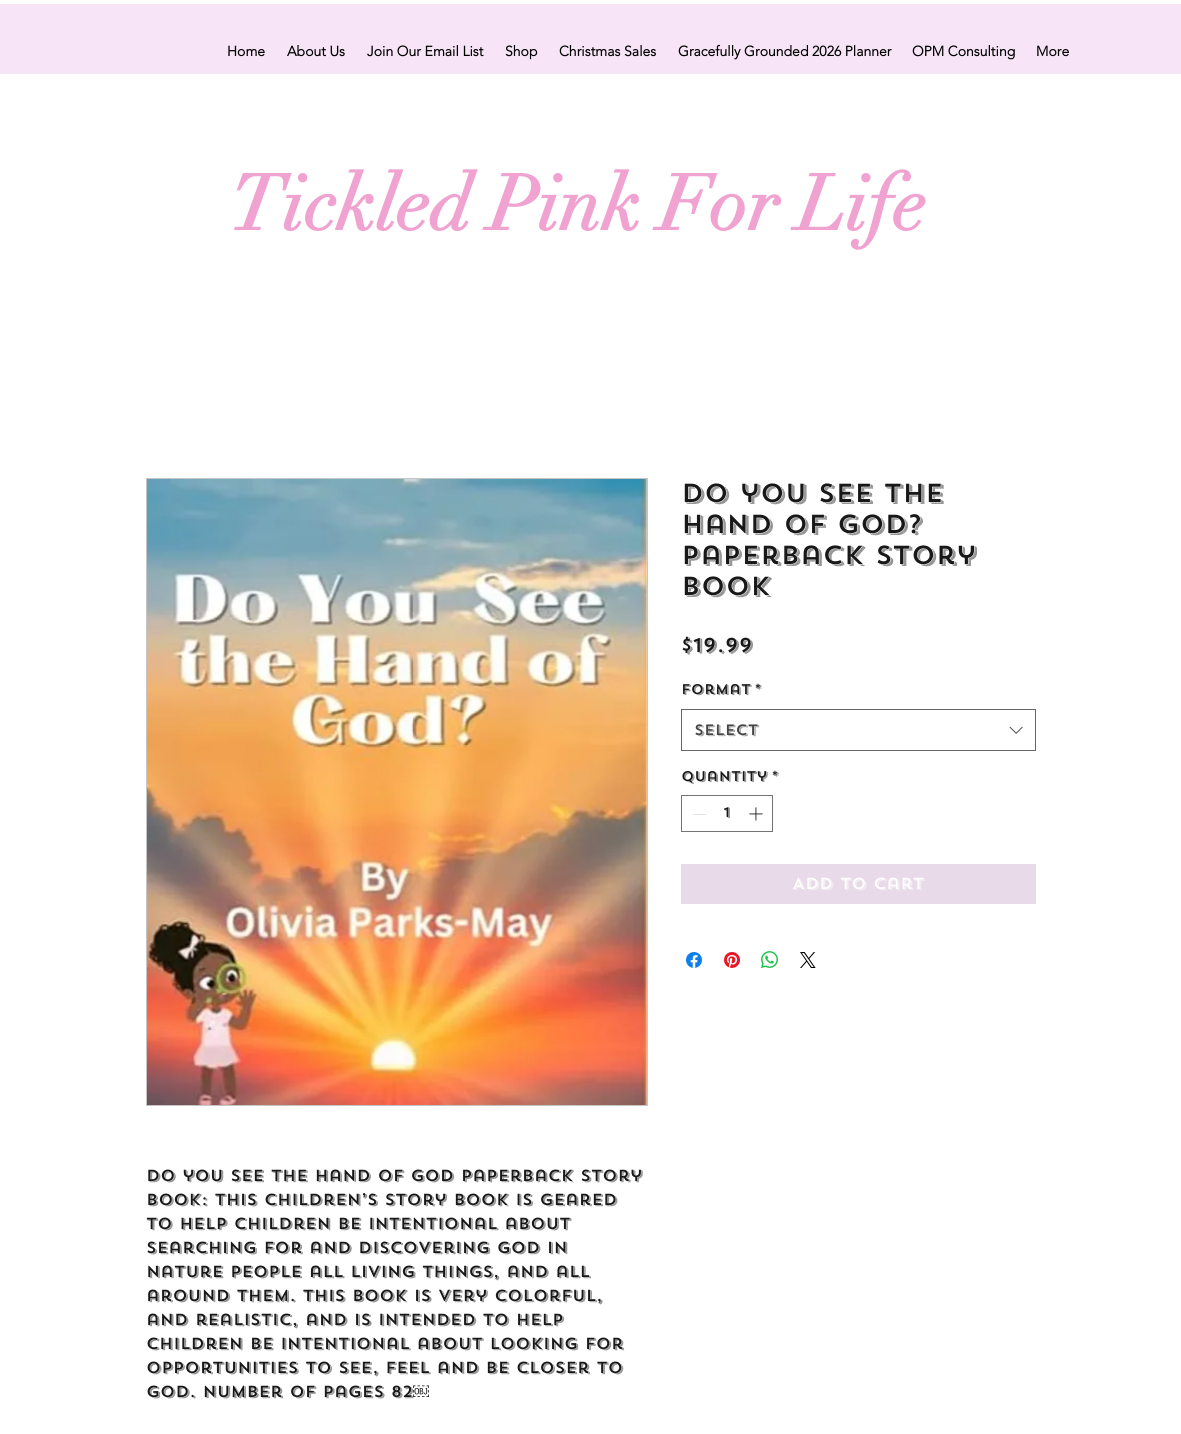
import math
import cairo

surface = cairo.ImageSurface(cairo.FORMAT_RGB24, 1181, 1434)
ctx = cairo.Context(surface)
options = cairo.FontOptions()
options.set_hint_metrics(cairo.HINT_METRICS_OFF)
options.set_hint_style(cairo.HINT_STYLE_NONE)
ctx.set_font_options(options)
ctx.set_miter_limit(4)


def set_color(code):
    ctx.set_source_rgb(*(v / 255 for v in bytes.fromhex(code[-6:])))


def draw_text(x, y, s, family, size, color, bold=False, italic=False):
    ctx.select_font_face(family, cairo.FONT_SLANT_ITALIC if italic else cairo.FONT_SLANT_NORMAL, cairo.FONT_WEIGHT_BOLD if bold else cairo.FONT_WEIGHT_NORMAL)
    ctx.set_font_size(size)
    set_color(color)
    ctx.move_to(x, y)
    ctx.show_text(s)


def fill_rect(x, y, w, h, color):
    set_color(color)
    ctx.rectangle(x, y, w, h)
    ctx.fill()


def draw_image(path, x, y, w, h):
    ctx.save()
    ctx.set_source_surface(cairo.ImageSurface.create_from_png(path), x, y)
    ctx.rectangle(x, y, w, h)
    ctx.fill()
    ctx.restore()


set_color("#ffffff")
ctx.paint()
fill_rect(0, 4, 1181, 70, "#f7e5f7")
draw_text(227, 56, "Home", "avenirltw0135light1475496", 14, "#000000", bold=True)
draw_text(287, 56, "About Us", "avenirltw0135light1475496", 14, "#000000", bold=True)
draw_text(367, 56, "Join Our Email List", "avenirltw0135light1475496", 14, "#000000", bold=True)
draw_text(505, 56, "Shop", "avenirltw0135light1475496", 14, "#000000", bold=True)
draw_text(559, 56, "Christmas Sales", "avenirltw0135light1475496", 14, "#000000", bold=True)
draw_text(678, 56, "Gracefully Grounded 2026 Planner", "avenirltw0135light1475496", 14, "#000000", bold=True)
draw_text(912, 56, "OPM Consulting", "avenirltw0135light1475496", 14, "#000000", bold=True)
draw_text(1036, 56, "More", "avenirltw0135light1475496", 14, "#000000", bold=True)
draw_text(230, 230, "Tickled Pink For Life", "didot", 77, "#f0a3d1", bold=True)
draw_text(681, 502, "Do you see the", "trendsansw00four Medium", 26, "#181818")
draw_text(681, 533, "hand of God?", "trendsansw00four Medium", 26, "#181818")
draw_text(681, 564, "Paperback Story", "trendsansw00four Medium", 26, "#181818")
draw_text(681, 595, "Book", "trendsansw00four Medium", 26, "#181818")
draw_text(681, 652, "$19.99", "trendsansw00four Medium", 20, "#181818")
draw_text(681, 694, "Format", "trendsansw00four Medium", 14, "#181818")
draw_text(754, 694, "*", "trendsansw00four Medium", 14, "#181818")
ctx.rectangle(681.5, 709.5, 354, 41)
set_color("#666666")
ctx.set_line_width(1)
ctx.stroke()
draw_text(694, 735, "Select", "trendsansw00four Medium", 15, "#444444")
draw_image("assets/img1.png", 1009, 726, 14, 8)
draw_text(681, 781, "Quantity", "trendsansw00four Medium", 14, "#181818")
draw_text(771, 781, "*", "trendsansw00four Medium", 14, "#181818")
ctx.rectangle(681.5, 795.5, 91, 36)
set_color("#747474")
ctx.stroke()
fill_rect(693, 814, 13, 1, "#e3e3e3")
draw_text(723, 817, "1", "trendsansw00four Medium", 14, "#181818")
draw_image("assets/img2.png", 749, 807, 14, 14)
fill_rect(681, 864, 355, 40, "#e8dae9")
draw_text(792, 889, "Add to Cart", "trendsansw00four Medium", 16, "#ffffff")
draw_image("assets/img3.png", 686, 952, 16, 16)
draw_image("assets/img4.png", 724, 952, 16, 16)
draw_image("assets/img5.png", 761, 951, 17, 17)
draw_image("assets/img6.png", 800, 952, 16, 16)
ctx.rectangle(146.5, 478.5, 501, 627)
set_color("#c5c5c5")
ctx.stroke()
draw_image("assets/img7.png", 147, 479, 500, 626)
draw_text(146, 1181, "Do you see the hand of God Paperback story", "trendsansw00four Medium", 16, "#181818")
draw_text(146, 1205, "book: this children’s story book is geared", "trendsansw00four Medium", 16, "#181818")
draw_text(146, 1229, "to help children be intentional about", "trendsansw00four Medium", 16, "#181818")
draw_text(146, 1253, "searching for and discovering God in", "trendsansw00four Medium", 16, "#181818")
draw_text(146, 1277, "nature people all living things, and all", "trendsansw00four Medium", 16, "#181818")
draw_text(146, 1301, "around them. This book is very colorful,", "trendsansw00four Medium", 16, "#181818")
draw_text(146, 1325, "and realistic, and is intended to help", "trendsansw00four Medium", 16, "#181818")
draw_text(146, 1349, "children be intentional about looking for", "trendsansw00four Medium", 16, "#181818")
draw_text(146, 1373, "opportunities to see, feel and be closer to", "trendsansw00four Medium", 16, "#181818")
draw_text(146, 1397, "God. Number of pages 82", "trendsansw00four Medium", 16, "#181818")
draw_text(413, 1397, "￼", "Liberation Sans", 16, "#181818")
surface.write_to_png("output.png")
